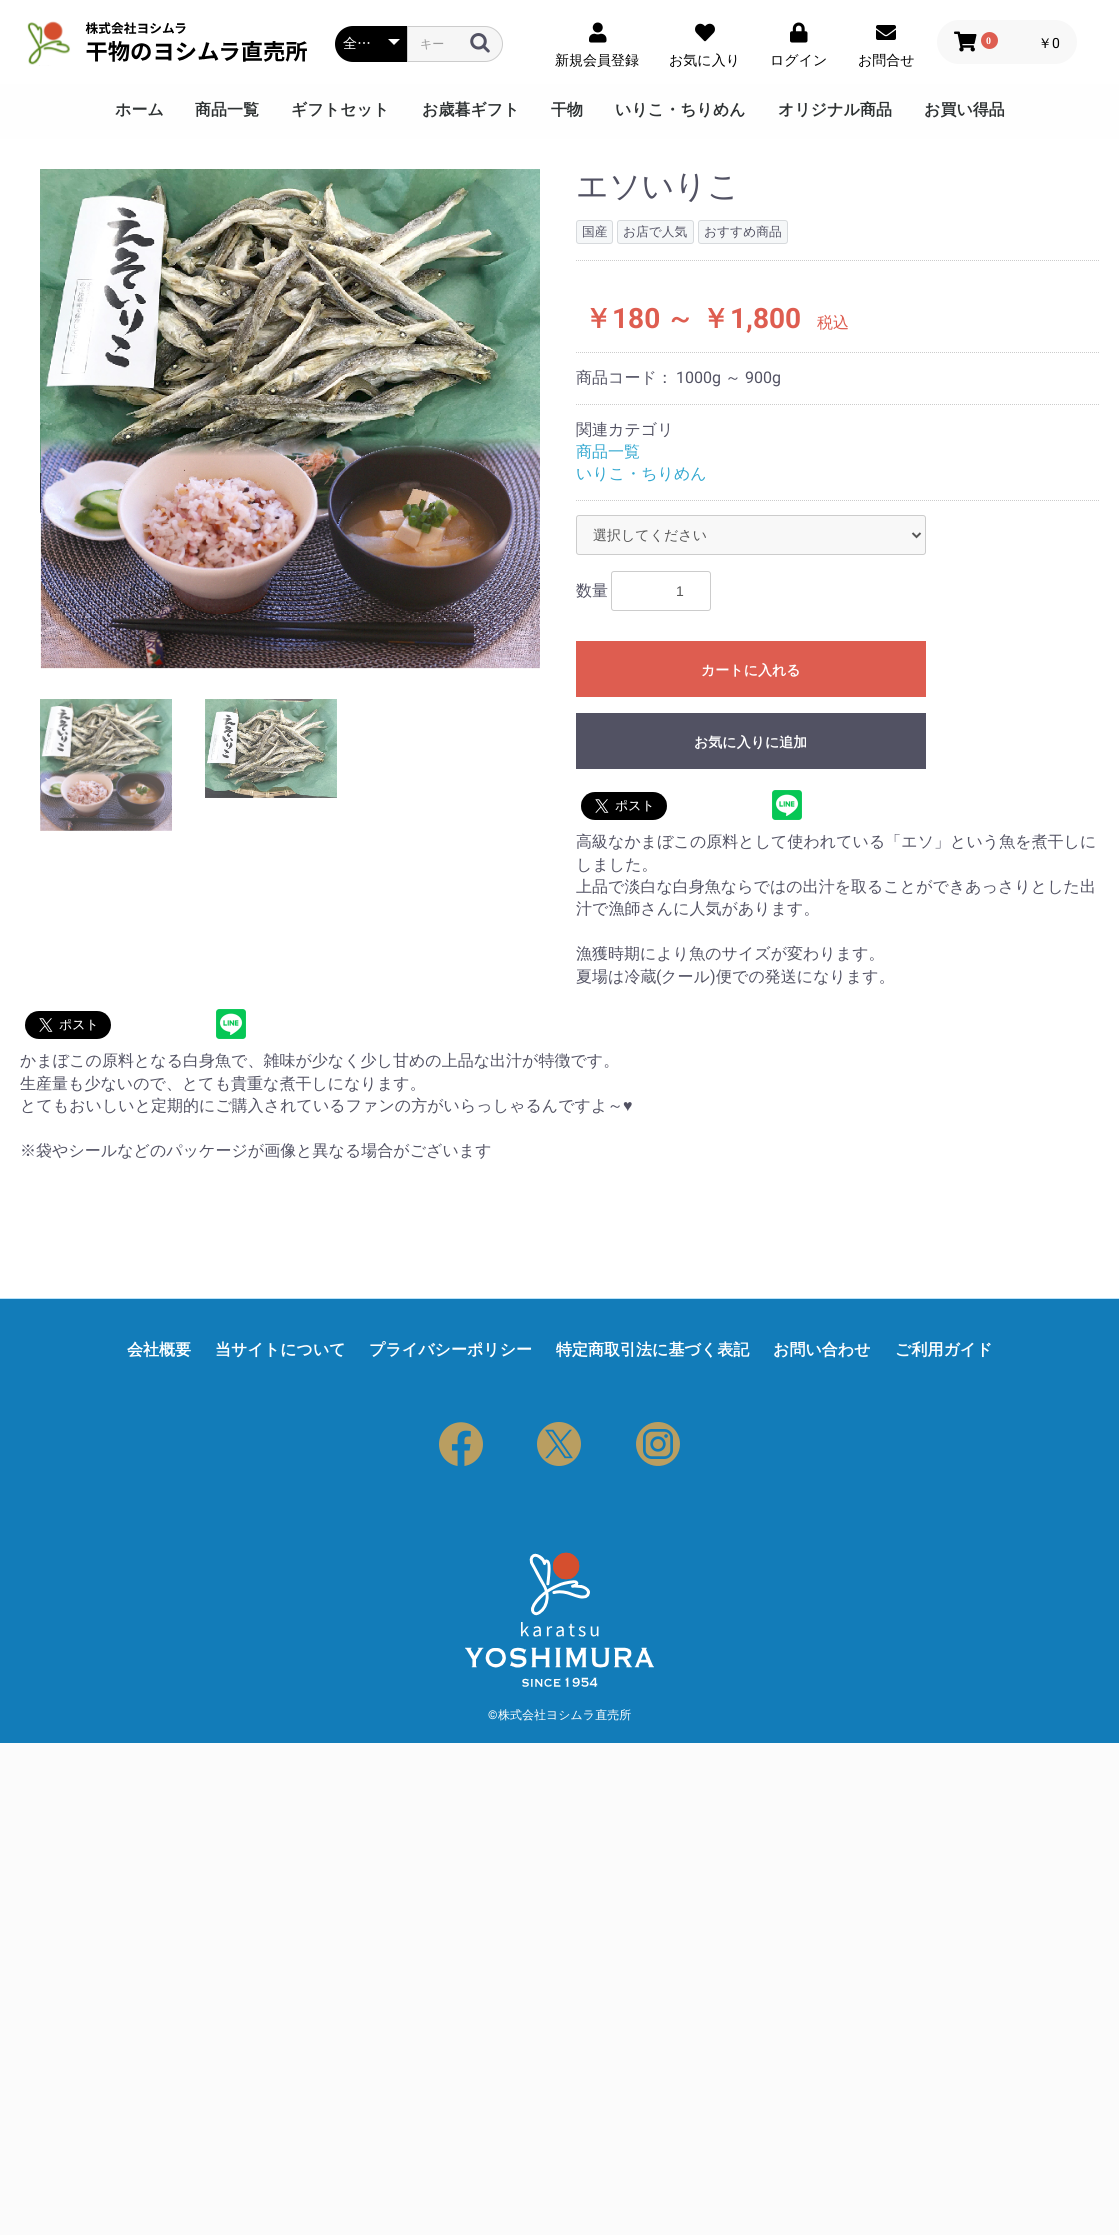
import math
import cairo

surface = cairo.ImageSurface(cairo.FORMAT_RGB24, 1119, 2235)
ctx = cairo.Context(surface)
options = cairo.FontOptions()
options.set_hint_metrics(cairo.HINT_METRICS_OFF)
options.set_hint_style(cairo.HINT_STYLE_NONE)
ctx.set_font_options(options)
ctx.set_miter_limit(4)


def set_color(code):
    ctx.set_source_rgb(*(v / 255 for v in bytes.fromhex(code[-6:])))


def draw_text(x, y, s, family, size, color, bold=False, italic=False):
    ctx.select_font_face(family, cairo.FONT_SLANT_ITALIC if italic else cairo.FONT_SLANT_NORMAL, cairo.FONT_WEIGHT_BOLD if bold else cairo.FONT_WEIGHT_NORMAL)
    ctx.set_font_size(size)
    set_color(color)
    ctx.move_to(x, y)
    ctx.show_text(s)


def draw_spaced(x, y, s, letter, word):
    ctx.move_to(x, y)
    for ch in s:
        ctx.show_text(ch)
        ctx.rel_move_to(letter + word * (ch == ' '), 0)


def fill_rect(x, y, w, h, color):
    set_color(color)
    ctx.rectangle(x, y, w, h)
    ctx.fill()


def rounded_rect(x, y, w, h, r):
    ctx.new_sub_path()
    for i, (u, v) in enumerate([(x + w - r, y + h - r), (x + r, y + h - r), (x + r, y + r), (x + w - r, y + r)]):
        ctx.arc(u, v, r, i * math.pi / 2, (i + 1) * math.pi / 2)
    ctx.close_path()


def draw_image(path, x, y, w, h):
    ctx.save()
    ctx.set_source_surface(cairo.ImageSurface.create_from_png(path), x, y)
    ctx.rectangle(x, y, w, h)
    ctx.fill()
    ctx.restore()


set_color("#fbfbfb")
ctx.paint()
fill_rect(0, 139, 1119, 1159, "#ffffff")
fill_rect(0, 0, 1119, 84, "#ffffff")
draw_image("assets/img1.png", 27, 21, 280, 45)
set_color("#000000")
ctx.new_path()
ctx.move_to(353, 26)
ctx.line_to(407, 26)
ctx.line_to(407, 62)
ctx.line_to(353, 62)
ctx.curve_to(343, 62, 335, 54, 335, 44)
ctx.curve_to(335, 34, 343, 26, 353, 26)
ctx.close_path()
ctx.fill()
draw_text(343, 48, "全…", "WenQuanYi Zen Hei Medium", 14, "#ffffff")
ctx.new_path()
ctx.move_to(388, 39)
ctx.line_to(400, 39)
ctx.line_to(394, 45)
ctx.close_path()
ctx.fill()
set_color("#f6f6f6")
ctx.new_path()
ctx.move_to(407.5, 26.5)
ctx.line_to(485, 26.5)
ctx.curve_to(494.5, 26.5, 502.5, 34.5, 502.5, 44)
ctx.curve_to(502.5, 53.5, 494.5, 61.5, 485, 61.5)
ctx.line_to(407.5, 61.5)
ctx.close_path()
ctx.fill_preserve()
set_color("#cccccc")
ctx.set_line_width(1)
ctx.stroke()
draw_text(420, 48, "キー", "WenQuanYi Zen Hei Medium", 12, "#999999")
draw_image("assets/img2.png", 470, 33, 20, 20)
set_color("#f8f8f8")
rounded_rect(937, 20, 140, 44, 22)
ctx.fill()
draw_image("assets/img3.png", 954, 31, 23, 21)
set_color("#de5d50")
ctx.arc(989.5, 40.5, 8.5, 0, 2 * math.pi)
ctx.fill()
draw_text(986, 44, "0", "Liberation Serif", 10, "#ffffff", bold=True)
draw_text(1038, 48, "￥", "WenQuanYi Zen Hei Medium", 14, "#000000")
draw_text(1052, 48, "0", "Roboto", 14, "#000000")
draw_image("assets/img4.png", 589, 22, 18, 21)
draw_text(555, 65, "新規会員登録", "WenQuanYi Zen Hei Medium", 14, "#000000")
draw_image("assets/img5.png", 695, 23, 20, 19)
draw_text(669, 65, "お気に入り", "WenQuanYi Zen Hei Medium", 14, "#000000")
draw_image("assets/img6.png", 790, 22, 18, 21)
draw_text(770, 65, "ログイン", "WenQuanYi Zen Hei Medium", 14, "#000000")
draw_image("assets/img7.png", 876, 25, 20, 15)
draw_text(858, 65, "お問合せ", "WenQuanYi Zen Hei Medium", 14, "#000000")
fill_rect(0, 84, 1119, 55, "#fefefe")
draw_text(115, 115, "ホーム", "WenQuanYi Zen Hei", 16, "#2e3233", bold=True)
draw_text(195, 115, "商品一覧", "WenQuanYi Zen Hei", 16, "#2e3233", bold=True)
draw_text(291, 115, "ギフトセット", "WenQuanYi Zen Hei", 16, "#2e3233", bold=True)
draw_text(422, 115, "お歳暮ギフト", "WenQuanYi Zen Hei", 16, "#2e3233", bold=True)
draw_text(551, 115, "干物", "WenQuanYi Zen Hei", 16, "#2e3233", bold=True)
draw_text(615, 115, "いりこ・ちりめん", "WenQuanYi Zen Hei", 16, "#2e3233", bold=True)
draw_text(778, 115, "オリジナル商品", "WenQuanYi Zen Hei", 16, "#2e3233", bold=True)
draw_text(924, 115, "お買い得品", "WenQuanYi Zen Hei", 16, "#2e3233", bold=True)
draw_image("assets/img8.png", 40, 169, 500, 500)
draw_image("assets/img9.png", 40, 699, 132, 132)
draw_image("assets/img10.png", 205, 699, 132, 99)
draw_text(576, 197, "エソいりこ", "WenQuanYi Zen Hei Medium", 32, "#525263")
ctx.new_path()
ctx.move_to(576, 260.5)
ctx.line_to(1099, 260.5)
set_color("#cccccc")
ctx.set_dash([1, 1])
ctx.stroke()
set_color("#f5f7f8")
rounded_rect(576.5, 220.5, 36, 23, 2.5)
ctx.fill_preserve()
set_color("#d7dadd")
ctx.set_dash([])
ctx.stroke()
draw_text(582, 236, "国産", "WenQuanYi Zen Hei Medium", 12.75, "#525263")
set_color("#f5f7f8")
rounded_rect(617.5, 220.5, 76, 23, 2.5)
ctx.fill_preserve()
set_color("#d7dadd")
ctx.stroke()
draw_text(623, 236, "お店で人気", "WenQuanYi Zen Hei Medium", 12.75, "#525263")
set_color("#f5f7f8")
rounded_rect(698.5, 220.5, 89, 23, 2.5)
ctx.fill_preserve()
set_color("#d7dadd")
ctx.stroke()
draw_text(704, 236, "おすすめ商品", "WenQuanYi Zen Hei Medium", 12.75, "#525263")
ctx.new_path()
ctx.move_to(576, 352.5)
ctx.line_to(1099, 352.5)
set_color("#cccccc")
ctx.set_dash([1, 1])
ctx.stroke()
draw_text(584, 328, "￥", "WenQuanYi Zen Hei", 28, "#de5d50", bold=True)
draw_text(612, 328, "180", "Roboto", 28, "#de5d50", bold=True)
ctx.select_font_face("WenQuanYi Zen Hei", cairo.FONT_SLANT_NORMAL, cairo.FONT_WEIGHT_BOLD)
draw_spaced(666, 328, "～ ￥", 0, -1)
draw_text(730, 328, "1,800", "Roboto", 28, "#de5d50", bold=True)
draw_text(817, 328, "税込", "WenQuanYi Zen Hei Medium", 16, "#de5d50")
ctx.new_path()
ctx.move_to(576, 404.5)
ctx.line_to(1099, 404.5)
set_color("#cccccc")
ctx.stroke()
draw_text(576, 383, "商品コード：", "WenQuanYi Zen Hei Medium", 16, "#525263")
draw_text(676, 383, "1000g", "Roboto", 16, "#525263")
draw_text(725, 383, "～", "WenQuanYi Zen Hei Medium", 16, "#525263")
draw_text(745, 383, "900g", "Roboto", 16, "#525263")
ctx.new_path()
ctx.move_to(576, 500.5)
ctx.line_to(1099, 500.5)
set_color("#cccccc")
ctx.stroke()
draw_text(576, 435, "関連カテゴリ", "WenQuanYi Zen Hei Medium", 16, "#525263")
draw_text(576, 457, "商品一覧", "WenQuanYi Zen Hei Medium", 16, "#33a8d0")
draw_text(576, 479, "いりこ・ちりめん", "WenQuanYi Zen Hei Medium", 16, "#33a8d0")
set_color("#f8f8f8")
rounded_rect(576.5, 515.5, 349, 39, 2.5)
ctx.fill_preserve()
set_color("#cccccc")
ctx.set_dash([])
ctx.stroke()
ctx.new_path()
ctx.move_to(912.5, 533)
ctx.line_to(916.5, 537)
ctx.line_to(920.5, 533)
set_color("#555555")
ctx.set_line_width(2)
ctx.stroke()
draw_text(593, 540, "選択してください", "WenQuanYi Zen Hei Medium", 14, "#555555")
draw_text(576, 596, "数量", "WenQuanYi Zen Hei Medium", 16, "#525263")
rounded_rect(611.5, 571.5, 99, 39, 2.5)
set_color("#cccccc")
ctx.set_line_width(1)
ctx.stroke()
draw_text(676, 596, "1", "Liberation Sans", 14, "#555555")
fill_rect(576, 641, 350, 56, "#de5d50")
draw_text(701, 675, "カートに入れる", "WenQuanYi Zen Hei", 14, "#ffffff", bold=True)
fill_rect(576, 713, 350, 56, "#525263")
draw_text(694, 747, "お気に入りに追加", "WenQuanYi Zen Hei", 14, "#ffffff", bold=True)
draw_image("assets/img11.png", 581, 792, 86, 28)
draw_image("assets/img12.png", 772, 790, 30, 30)
draw_text(576, 847, "高級なかまぼこの原料として使われている「エソ」という魚を煮干しに", "WenQuanYi Zen Hei Medium", 16, "#525263")
draw_text(576, 870, "しました。", "WenQuanYi Zen Hei Medium", 16, "#525263")
draw_text(576, 892, "上品で淡白な白身魚ならではの出汁を取ることができあっさりとした出", "WenQuanYi Zen Hei Medium", 16, "#525263")
draw_text(576, 914, "汁で漁師さんに人気があります。", "WenQuanYi Zen Hei Medium", 16, "#525263")
draw_text(576, 959, "漁獲時期により魚のサイズが変わります。", "WenQuanYi Zen Hei Medium", 16, "#525263")
draw_text(576, 982, "夏場は冷蔵", "WenQuanYi Zen Hei Medium", 16, "#525263")
draw_text(656, 982, "(", "Roboto", 16, "#525263")
draw_text(661, 982, "クール", "WenQuanYi Zen Hei Medium", 16, "#525263")
draw_text(710, 982, ")", "Roboto", 16, "#525263")
draw_text(716, 982, "便での発送になります。", "WenQuanYi Zen Hei Medium", 16, "#525263")
draw_image("assets/img13.png", 25, 1011, 86, 28)
draw_image("assets/img12.png", 216, 1009, 30, 30)
draw_text(20, 1066, "かまぼこの原料となる白身魚で、雑味が少なく少し甘めの上品な出汁が特徴です。", "WenQuanYi Zen Hei Medium", 16, "#525263")
draw_text(20, 1089, "生産量も少ないので、とても貴重な煮干しになります。", "WenQuanYi Zen Hei Medium", 16, "#525263")
draw_text(20, 1111, "とてもおいしいと定期的にご購入されているファンの方がいらっしゃるんですよ～", "WenQuanYi Zen Hei Medium", 16, "#525263")
draw_text(623, 1111, "♥", "Liberation Sans", 16, "#525263")
draw_text(20, 1156, "※袋やシールなどのパッケージが画像と異なる場合がございます", "WenQuanYi Zen Hei Medium", 16, "#525263")
fill_rect(0, 1299, 1119, 444, "#127cb9")
fill_rect(0, 1298, 1119, 1, "#bbe3f9")
draw_text(127, 1355, "会社概要", "WenQuanYi Zen Hei", 16, "#ffffff", bold=True)
draw_text(215, 1355, "当サイトについて", "WenQuanYi Zen Hei", 16, "#ffffff", bold=True)
draw_text(369, 1355, "プライバシーポリシー", "WenQuanYi Zen Hei", 16, "#ffffff", bold=True)
draw_text(556, 1355, "特定商取引法に基づく表記", "WenQuanYi Zen Hei", 16, "#ffffff", bold=True)
draw_text(773, 1355, "お問い合わせ", "WenQuanYi Zen Hei", 16, "#ffffff", bold=True)
draw_text(895, 1355, "ご利用ガイド", "WenQuanYi Zen Hei", 16, "#ffffff", bold=True)
draw_image("assets/img14.png", 439, 1422, 44, 44)
draw_image("assets/img15.png", 537, 1422, 44, 44)
draw_image("assets/img16.png", 636, 1422, 44, 44)
draw_image("assets/img17.png", 465, 1552, 189, 135)
draw_text(488, 1719, "©", "Roboto Medium", 12, "#ffffff")
draw_text(498, 1719, "株式会社ヨシムラ直売所", "WenQuanYi Zen Hei Medium", 12, "#ffffff")
surface.write_to_png("output.png")
